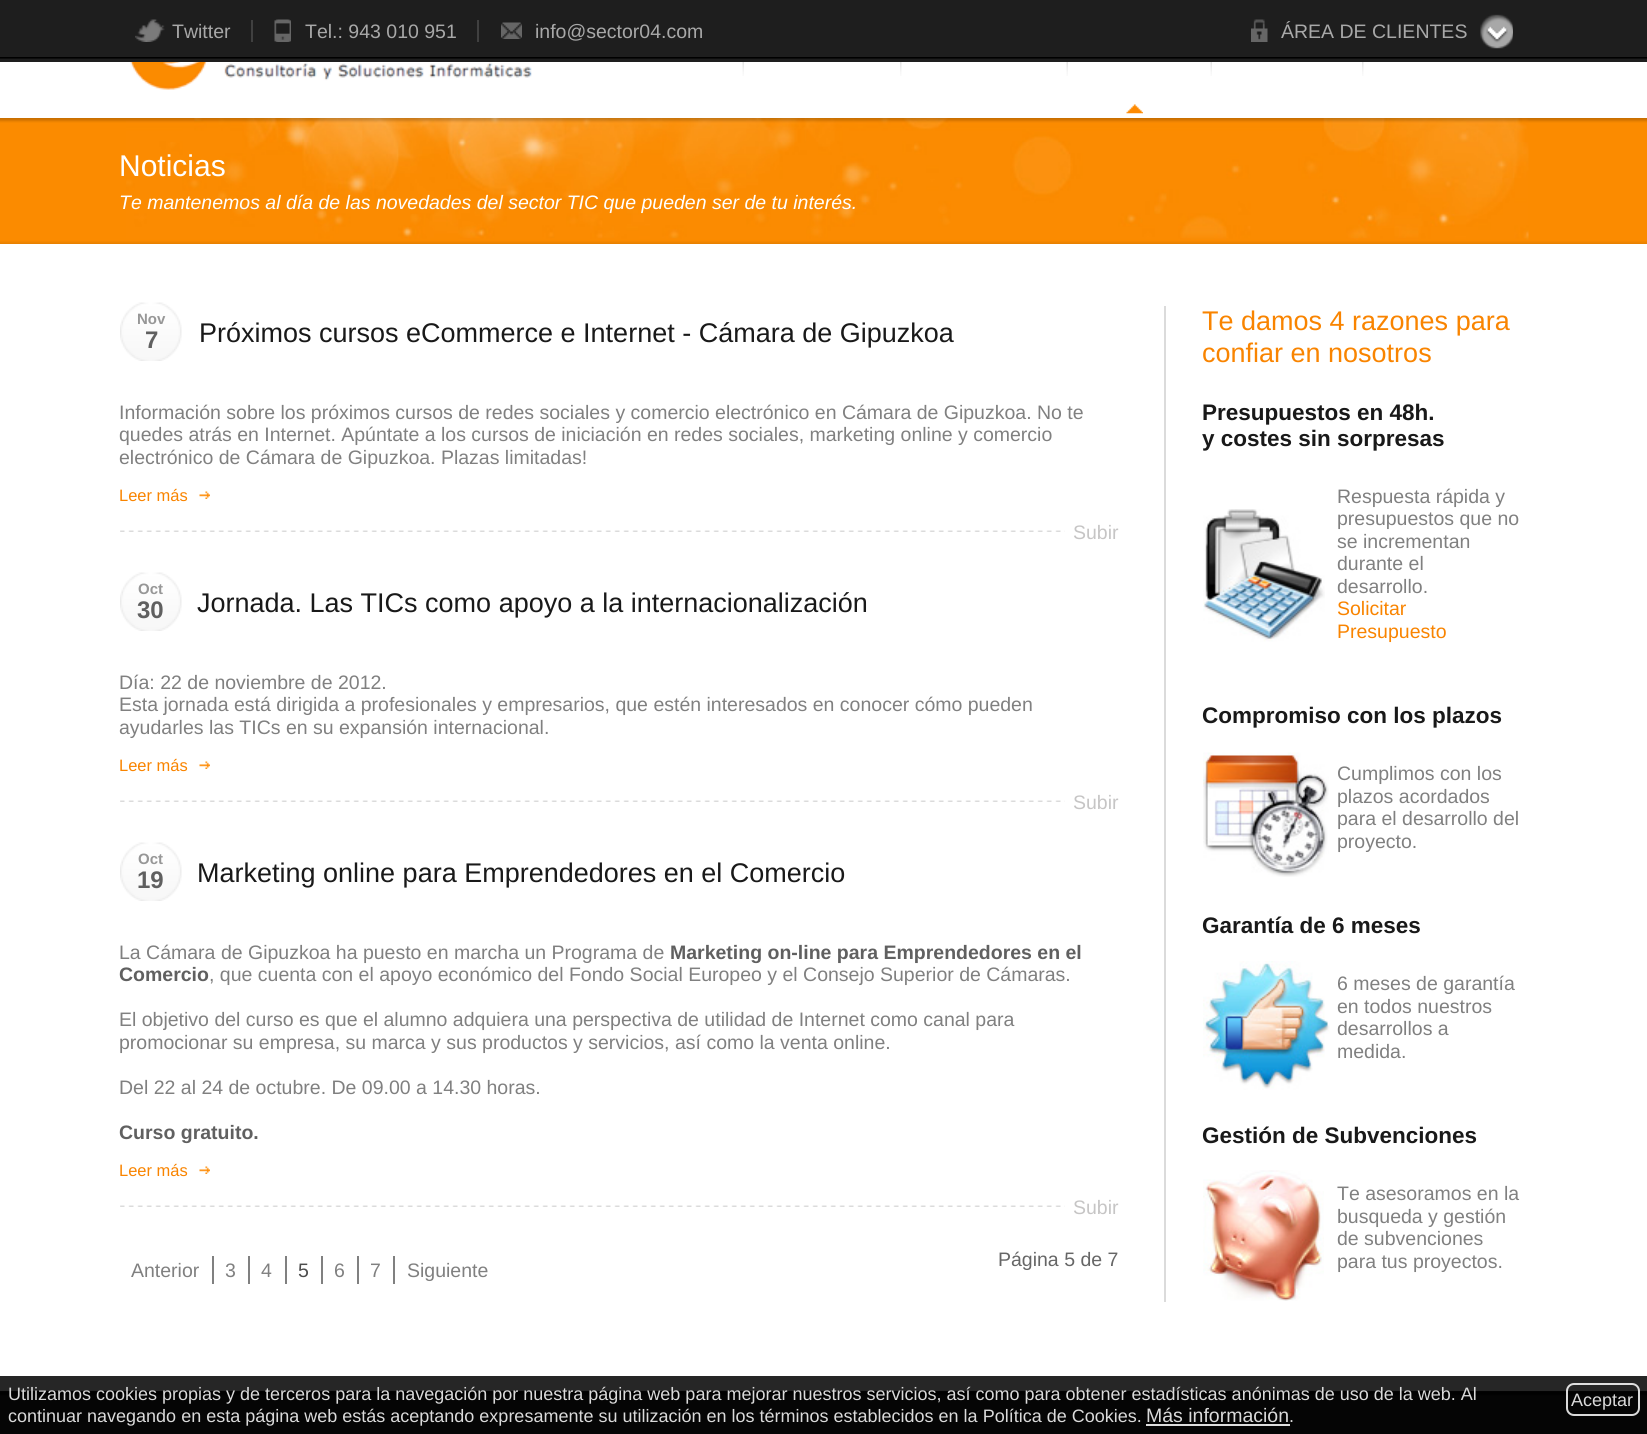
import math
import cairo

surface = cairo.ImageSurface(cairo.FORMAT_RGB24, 1647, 1434)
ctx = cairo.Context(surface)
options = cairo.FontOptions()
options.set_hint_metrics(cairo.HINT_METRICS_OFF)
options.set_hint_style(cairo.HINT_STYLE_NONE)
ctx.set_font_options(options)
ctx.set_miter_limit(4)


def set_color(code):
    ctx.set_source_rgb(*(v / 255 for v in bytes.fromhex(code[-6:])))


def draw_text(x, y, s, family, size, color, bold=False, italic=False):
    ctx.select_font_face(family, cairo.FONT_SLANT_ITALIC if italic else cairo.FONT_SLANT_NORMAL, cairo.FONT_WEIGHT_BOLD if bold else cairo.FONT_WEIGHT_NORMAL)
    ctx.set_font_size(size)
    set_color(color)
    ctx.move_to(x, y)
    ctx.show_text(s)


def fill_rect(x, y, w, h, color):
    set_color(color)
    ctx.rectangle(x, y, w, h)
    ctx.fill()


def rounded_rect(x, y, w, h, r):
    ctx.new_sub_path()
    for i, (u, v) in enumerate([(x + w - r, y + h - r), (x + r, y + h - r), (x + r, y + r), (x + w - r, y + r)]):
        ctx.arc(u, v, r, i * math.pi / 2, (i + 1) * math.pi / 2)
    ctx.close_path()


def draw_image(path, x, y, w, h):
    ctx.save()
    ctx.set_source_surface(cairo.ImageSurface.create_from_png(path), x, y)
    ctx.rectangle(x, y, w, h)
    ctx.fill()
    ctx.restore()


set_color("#ffffff")
ctx.paint()
fill_rect(0, 1376, 1647, 15, "#262626")
fill_rect(0, 0, 1647, 62, "#1e1e1e")
draw_image("assets/img1.png", 0, 57, 1647, 2)
draw_image("assets/img2.png", 135, 19, 30, 23)
draw_text(172, 38, "Twitter", "Liberation Sans", 19.5, "#a8a8a8")
draw_image("assets/img3.png", 274, 19, 17, 23)
draw_text(305, 38, "Tel.: 943 010 951", "Liberation Sans", 19.5, "#a8a8a8")
fill_rect(251, 20, 2, 22, "#404040")
draw_image("assets/img4.png", 501, 22, 21, 17)
draw_text(535, 38, "info@sector04.com", "Liberation Sans", 19.5, "#a8a8a8")
fill_rect(477, 20, 2, 22, "#404040")
draw_image("assets/img5.png", 1480, 14, 33, 35)
draw_image("assets/img6.png", 1251, 19, 17, 23)
draw_text(1281, 38, "ÁREA DE CLIENTES", "Liberation Sans", 19.5, "#a8a8a8")
draw_image("assets/img7.png", 128, 62, 404, 28)
draw_image("assets/img8.png", 742, 62, 2, 14)
draw_image("assets/img9.png", 900, 62, 2, 14)
draw_image("assets/img8.png", 1066, 62, 2, 14)
draw_image("assets/img10.png", 1126, 104, 17, 10)
draw_image("assets/img8.png", 1210, 62, 2, 14)
draw_image("assets/img9.png", 1362, 62, 2, 14)
draw_image("assets/img11.png", 0, 118, 1647, 126)
draw_image("assets/img12.png", 126, 118, 1403, 122)
draw_text(119, 176, "Noticias", "Liberation Sans", 30, "#ffffff")
draw_text(119, 209, "Te mantenemos al día de las novedades del sector TIC que pueden ser de tu interés.", "Liberation Sans", 19.5, "#ffffff", italic=True)
draw_image("assets/img13.png", 120, 302, 62, 59)
draw_text(137, 324, "Nov", "Liberation Sans", 15, "#979797", bold=True)
draw_text(145, 348, "7", "Liberation Sans", 24, "#606060", bold=True)
draw_text(199, 342, "Próximos cursos eCommerce e Internet - Cámara de Gipuzkoa", "Liberation Sans", 27, "#191919")
draw_text(119, 419, "Información sobre los próximos cursos de redes sociales y comercio electrónico en Cámara de Gipuzkoa. No te", "Liberation Sans", 19.5, "#808080")
draw_text(119, 441, "quedes atrás en Internet. Apúntate a los cursos de iniciación en redes sociales, marketing online y comercio", "Liberation Sans", 19.5, "#808080")
draw_text(119, 464, "electrónico de Cámara de Gipuzkoa. Plazas limitadas!", "Liberation Sans", 19.5, "#808080")
draw_text(119, 501, "Leer más", "Liberation Sans", 16.5, "#f98400")
draw_image("assets/img14.png", 199, 491, 11, 8)
draw_image("assets/img15.png", 120, 530, 945, 2)
draw_text(1073, 539, "Subir", "Liberation Sans", 19.5, "#c6c5c5")
draw_image("assets/img13.png", 120, 572, 62, 59)
draw_text(138, 594, "Oct", "Liberation Sans", 15, "#979797", bold=True)
draw_text(137, 618, "30", "Liberation Sans", 24, "#606060", bold=True)
draw_text(197, 612, "Jornada. Las TICs como apoyo a la internacionalización", "Liberation Sans", 27, "#191919")
draw_text(119, 689, "Día: 22 de noviembre de 2012.", "Liberation Sans", 19.5, "#808080")
draw_text(119, 711, "Esta jornada está dirigida a profesionales y empresarios, que estén interesados en conocer cómo pueden", "Liberation Sans", 19.5, "#808080")
draw_text(119, 734, "ayudarles las TICs en su expansión internacional.", "Liberation Sans", 19.5, "#808080")
draw_text(119, 771, "Leer más", "Liberation Sans", 16.5, "#f98400")
draw_image("assets/img14.png", 199, 761, 11, 8)
draw_image("assets/img15.png", 120, 800, 945, 2)
draw_text(1073, 809, "Subir", "Liberation Sans", 19.5, "#c6c5c5")
draw_image("assets/img13.png", 120, 842, 62, 59)
draw_text(138, 864, "Oct", "Liberation Sans", 15, "#979797", bold=True)
draw_text(137, 888, "19", "Liberation Sans", 24, "#606060", bold=True)
draw_text(197, 882, "Marketing online para Emprendedores en el Comercio", "Liberation Sans", 27, "#191919")
draw_text(119, 959, "La Cámara de Gipuzkoa ha puesto en marcha un Programa de", "Liberation Sans", 19.5, "#808080")
draw_text(670, 959, "Marketing on-line para Emprendedores en el", "Liberation Sans", 19.5, "#606060", bold=True)
draw_text(119, 981, "Comercio", "Liberation Sans", 19.5, "#606060", bold=True)
draw_text(209, 981, ", que cuenta con el apoyo económico del Fondo Social Europeo y el Consejo Superior de Cámaras.", "Liberation Sans", 19.5, "#808080")
draw_text(119, 1026, "El objetivo del curso es que el alumno adquiera una perspectiva de utilidad de Internet como canal para", "Liberation Sans", 19.5, "#808080")
draw_text(119, 1049, "promocionar su empresa, su marca y sus productos y servicios, así como la venta online.", "Liberation Sans", 19.5, "#808080")
draw_text(119, 1094, "Del 22 al 24 de octubre. De 09.00 a 14.30 horas.", "Liberation Sans", 19.5, "#808080")
draw_text(119, 1139, "Curso gratuito.", "Liberation Sans", 19.5, "#606060", bold=True)
draw_text(119, 1176, "Leer más", "Liberation Sans", 16.5, "#f98400")
draw_image("assets/img14.png", 199, 1166, 11, 8)
draw_image("assets/img15.png", 120, 1205, 945, 2)
draw_text(1073, 1214, "Subir", "Liberation Sans", 19.5, "#c6c5c5")
draw_text(131, 1277, "Anterior", "Liberation Sans", 19.5, "#808080")
fill_rect(212, 1256, 2, 28, "#808080")
draw_text(225, 1277, "3", "Liberation Sans", 19.5, "#808080")
fill_rect(248, 1256, 2, 28, "#808080")
draw_text(261, 1277, "4", "Liberation Sans", 19.5, "#808080")
fill_rect(285, 1256, 2, 28, "#808080")
draw_text(298, 1277, "5", "Liberation Sans", 19.5, "#4c4c4c")
fill_rect(321, 1256, 2, 28, "#808080")
draw_text(334, 1277, "6", "Liberation Sans", 19.5, "#808080")
fill_rect(357, 1256, 2, 28, "#808080")
draw_text(370, 1277, "7", "Liberation Sans", 19.5, "#808080")
fill_rect(393, 1256, 2, 28, "#808080")
draw_text(407, 1277, "Siguiente", "Liberation Sans", 19.5, "#808080")
draw_text(998, 1266, "Página 5 de 7", "Liberation Sans", 19.5, "#666666")
fill_rect(1164, 306, 2, 996, "#dbdbdb")
draw_text(1202, 330, "Te damos 4 razones para", "Liberation Sans", 27, "#f98400")
draw_text(1202, 362, "confiar en nosotros", "Liberation Sans", 27, "#f98400")
draw_text(1202, 420, "Presupuestos en 48h.", "Liberation Sans", 22.5, "#191919", bold=True)
draw_text(1202, 446, "y costes sin sorpresas", "Liberation Sans", 22.5, "#191919", bold=True)
draw_image("assets/img16.png", 1203, 509, 122, 133)
draw_text(1337, 503, "Respuesta rápida y", "Liberation Sans", 19.5, "#808080")
draw_text(1337, 525, "presupuestos que no", "Liberation Sans", 19.5, "#808080")
draw_text(1337, 548, "se incrementan", "Liberation Sans", 19.5, "#808080")
draw_text(1337, 570, "durante el", "Liberation Sans", 19.5, "#808080")
draw_text(1337, 593, "desarrollo.", "Liberation Sans", 19.5, "#808080")
draw_text(1337, 615, "Solicitar", "Liberation Sans", 19.5, "#f98400")
draw_text(1337, 638, "Presupuesto", "Liberation Sans", 19.5, "#f98400")
draw_text(1202, 723, "Compromiso con los plazos", "Liberation Sans", 22.5, "#191919", bold=True)
draw_image("assets/img17.png", 1203, 752, 126, 125)
draw_text(1337, 780, "Cumplimos con los", "Liberation Sans", 19.5, "#808080")
draw_text(1337, 803, "plazos acordados", "Liberation Sans", 19.5, "#808080")
draw_text(1337, 825, "para el desarrollo del", "Liberation Sans", 19.5, "#808080")
draw_text(1337, 848, "proyecto.", "Liberation Sans", 19.5, "#808080")
draw_text(1202, 933, "Garantía de 6 meses", "Liberation Sans", 22.5, "#191919", bold=True)
draw_image("assets/img18.png", 1203, 961, 127, 129)
draw_text(1337, 990, "6 meses de garantía", "Liberation Sans", 19.5, "#808080")
draw_text(1337, 1013, "en todos nuestros", "Liberation Sans", 19.5, "#808080")
draw_text(1337, 1035, "desarrollos a", "Liberation Sans", 19.5, "#808080")
draw_text(1337, 1058, "medida.", "Liberation Sans", 19.5, "#808080")
draw_text(1202, 1143, "Gestión de Subvenciones", "Liberation Sans", 22.5, "#191919", bold=True)
draw_image("assets/img19.png", 1203, 1170, 121, 131)
draw_text(1337, 1200, "Te asesoramos en la", "Liberation Sans", 19.5, "#808080")
draw_text(1337, 1223, "busqueda y gestión", "Liberation Sans", 19.5, "#808080")
draw_text(1337, 1245, "de subvenciones", "Liberation Sans", 19.5, "#808080")
draw_text(1337, 1268, "para tus proyectos.", "Liberation Sans", 19.5, "#808080")
fill_rect(0, 1391, 1647, 43, "#050505")
draw_image("assets/img20.png", 0, 1391, 1647, 5)
draw_text(8, 1400, "Utilizamos cookies propias y de terceros para la navegación por nuestra página web para mejorar nuestros servicios, así como para obtener estadísticas anónimas de uso de la web. Al", "Liberation Sans", 18, "#dadada")
rounded_rect(1567, 1384, 72, 31, 7)
ctx.set_source_rgba(1, 1, 1, 0.85)
ctx.stroke()
draw_text(1571, 1406, "Aceptar", "Liberation Sans", 18, "#dadada")
draw_text(8, 1422, "continuar navegando en esta página web estás aceptando expresamente su utilización en los términos establecidos en la Política de Cookies.", "Liberation Sans", 18, "#dadada")
draw_text(1146, 1422, "Más información", "Liberation Sans", 19.5, "#dadada")
fill_rect(1146, 1424, 144, 2, "#dedede")
draw_text(1289, 1422, ".", "Liberation Sans", 18, "#dadada")
surface.write_to_png("output.png")
